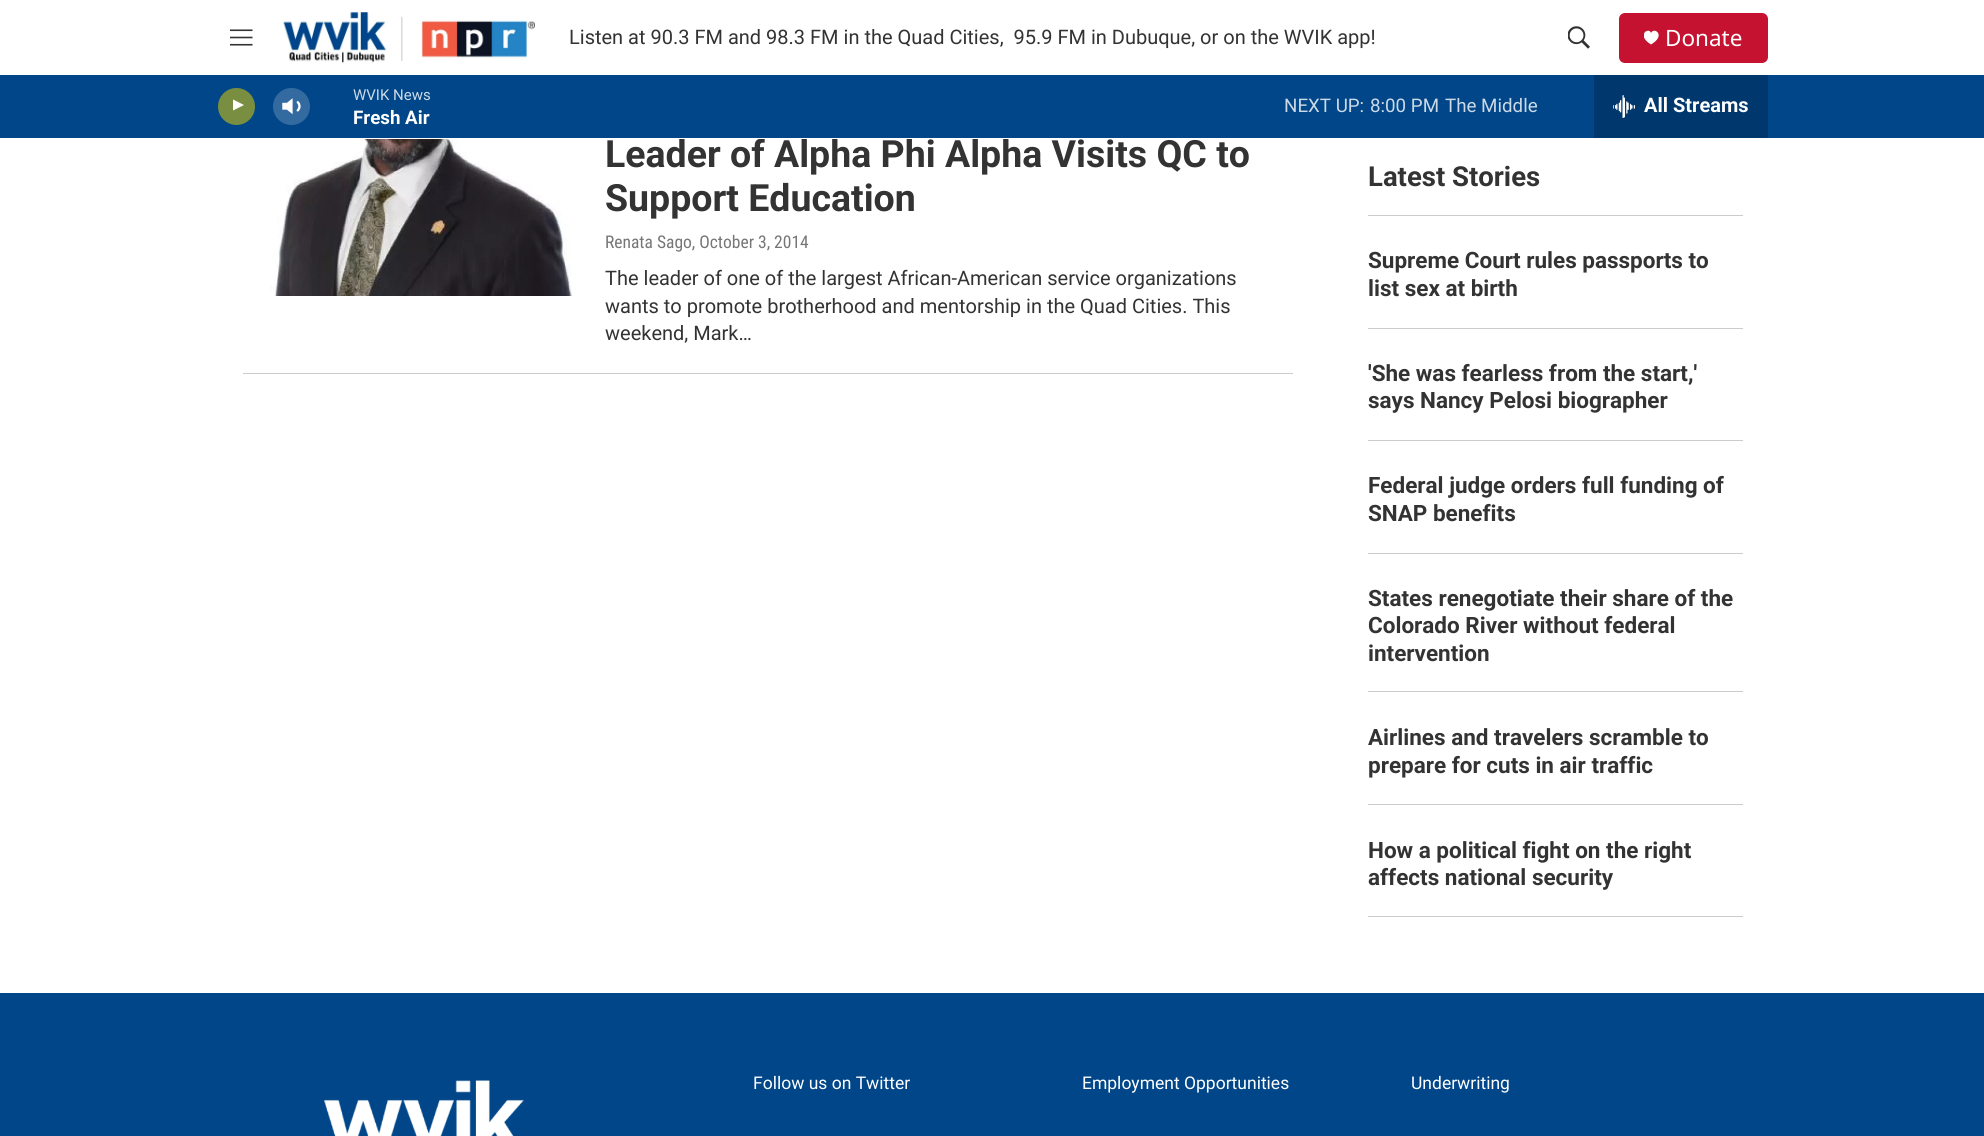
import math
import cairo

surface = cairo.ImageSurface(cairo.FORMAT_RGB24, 1984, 1136)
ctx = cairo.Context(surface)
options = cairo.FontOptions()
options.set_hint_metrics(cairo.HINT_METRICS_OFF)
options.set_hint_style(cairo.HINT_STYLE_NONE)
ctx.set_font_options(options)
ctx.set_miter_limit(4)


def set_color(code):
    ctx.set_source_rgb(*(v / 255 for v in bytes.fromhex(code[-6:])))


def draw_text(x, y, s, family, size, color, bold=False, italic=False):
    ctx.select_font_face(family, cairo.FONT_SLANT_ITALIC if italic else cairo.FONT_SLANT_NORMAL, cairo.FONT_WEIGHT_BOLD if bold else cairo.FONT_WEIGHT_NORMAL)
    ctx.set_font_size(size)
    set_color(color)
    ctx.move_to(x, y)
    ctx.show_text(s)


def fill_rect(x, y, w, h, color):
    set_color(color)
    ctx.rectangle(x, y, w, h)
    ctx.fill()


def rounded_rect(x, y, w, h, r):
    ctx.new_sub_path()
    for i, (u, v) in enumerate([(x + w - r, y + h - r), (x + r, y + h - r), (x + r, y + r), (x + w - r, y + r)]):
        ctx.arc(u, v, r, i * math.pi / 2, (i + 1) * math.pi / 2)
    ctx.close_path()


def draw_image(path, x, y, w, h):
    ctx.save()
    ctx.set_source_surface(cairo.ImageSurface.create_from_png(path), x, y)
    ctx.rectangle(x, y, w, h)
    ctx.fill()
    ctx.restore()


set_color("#ffffff")
ctx.paint()
draw_text(605, 167, "Leader of Alpha Phi Alpha Visits QC to", "Roboto", 37.5, "#333333", bold=True)
fill_rect(679, 138, 330, 1, "#ffffff")
draw_image("assets/img1.png", 230, 29, 23, 17)
draw_image("assets/img2.png", 283, 12, 252, 51)
draw_text(569, 44, "Listen at 90.3 FM and 98.3 FM in the Quad Cities,  95.9 FM in Dubuque, or on the WVIK app!", "Roboto", 20, "#333333")
draw_image("assets/img3.png", 1568, 26, 22, 23)
set_color("#c41230")
rounded_rect(1619, 13, 149, 50, 6)
ctx.fill()
ctx.save()
ctx.rectangle(1644, 30, 15, 15)
ctx.clip()
set_color("#ffffff")
ctx.new_path()
ctx.move_to(1651, 33)
ctx.curve_to(1649, 26.5, 1635.5, 35, 1651, 44.5)
ctx.curve_to(1667, 35, 1653.5, 26.5, 1651, 33)
ctx.close_path()
ctx.fill()
ctx.restore()
draw_text(1665, 46, "Donate", "Noto Sans", 22.5, "#ffffff")
fill_rect(0, 75, 1984, 63, "#004688")
set_color("#7a8e41")
ctx.new_path()
ctx.arc(236.5, 106.5, 18.5, 0, 2 * math.pi)
ctx.fill()
ctx.save()
ctx.rectangle(233, 98, 14, 18)
ctx.clip()
set_color("#ffffff")
ctx.new_path()
ctx.move_to(232, 99)
ctx.line_to(244, 105)
ctx.line_to(232, 111)
ctx.close_path()
ctx.fill()
ctx.restore()
draw_image("assets/img4.png", 282, 98, 19, 17)
ctx.set_source_rgba(1, 1, 1, 0.2)
ctx.arc(291.5, 106.5, 18.5, 0, 2 * math.pi)
ctx.fill()
draw_text(353, 100, "WVIK News", "Roboto", 15, "#ccdae7")
draw_text(353, 124, "Fresh Air", "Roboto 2", 18.75, "#ffffff", bold=True)
draw_text(1284, 112, "NEXT UP:", "Roboto", 18.75, "#ccdae7")
draw_text(1370, 112, "8:00 PM", "Roboto", 18.75, "#ccdae7")
draw_text(1445, 112, "The Middle", "Roboto", 18.75, "#ccdae7")
fill_rect(1594, 75, 174, 63, "#00386d")
draw_image("assets/img5.png", 1613, 95, 22, 23)
draw_text(1644, 112, "All Streams", "Roboto 2", 20, "#ffffff", bold=True)
fill_rect(243, 373, 1050, 1, "#cccccc")
draw_image("assets/img6.png", 270, 139, 303, 157)
draw_text(605, 211, "Support Education", "Roboto", 37.5, "#333333", bold=True)
draw_text(605, 248, "Renata Sago, October 3, 2014", "Roboto Condensed", 17.5, "#767676")
draw_text(605, 285, "The leader of one of the largest African-American service organizations", "Roboto", 20, "#333333")
draw_text(605, 313, "wants to promote brotherhood and mentorship in the Quad Cities. This", "Roboto", 20, "#333333")
draw_text(605, 340, "weekend, Mark…", "Roboto", 20, "#333333")
fill_rect(1368, 215, 375, 1, "#cccccc")
draw_text(1368, 186, "Latest Stories", "Roboto", 27.5, "#333333", bold=True)
fill_rect(1368, 328, 375, 1, "#cccccc")
draw_text(1368, 268, "Supreme Court rules passports to", "Roboto", 22.5, "#333333", bold=True)
draw_text(1368, 296, "list sex at birth", "Roboto", 22.5, "#333333", bold=True)
fill_rect(1368, 440, 375, 1, "#cccccc")
draw_text(1368, 381, "'She was fearless from the start,'", "Roboto", 22.5, "#333333", bold=True)
draw_text(1368, 408, "says Nancy Pelosi biographer", "Roboto", 22.5, "#333333", bold=True)
fill_rect(1368, 553, 375, 1, "#cccccc")
draw_text(1368, 493, "Federal judge orders full funding of", "Roboto", 22.5, "#333333", bold=True)
draw_text(1368, 521, "SNAP benefits", "Roboto", 22.5, "#333333", bold=True)
fill_rect(1368, 691, 375, 1, "#cccccc")
draw_text(1368, 606, "States renegotiate their share of the", "Roboto", 22.5, "#333333", bold=True)
draw_text(1368, 633, "Colorado River without federal", "Roboto", 22.5, "#333333", bold=True)
draw_text(1368, 661, "intervention", "Roboto", 22.5, "#333333", bold=True)
fill_rect(1368, 804, 375, 1, "#cccccc")
draw_text(1368, 745, "Airlines and travelers scramble to", "Roboto", 22.5, "#333333", bold=True)
draw_text(1368, 773, "prepare for cuts in air traffic", "Roboto", 22.5, "#333333", bold=True)
fill_rect(1368, 916, 375, 1, "#cccccc")
draw_text(1368, 858, "How a political fight on the right", "Roboto", 22.5, "#333333", bold=True)
draw_text(1368, 885, "affects national security", "Roboto", 22.5, "#333333", bold=True)
fill_rect(0, 993, 1984, 143, "#004688")
draw_image("assets/img7.png", 323, 1080, 201, 56)
draw_text(753, 1089, "Follow us on Twitter", "Roboto", 17.5, "#ffffff")
draw_text(1082, 1089, "Employment Opportunities", "Roboto", 17.5, "#ffffff")
draw_text(1411, 1089, "Underwriting", "Roboto", 17.5, "#ffffff")
surface.write_to_png("output.png")
